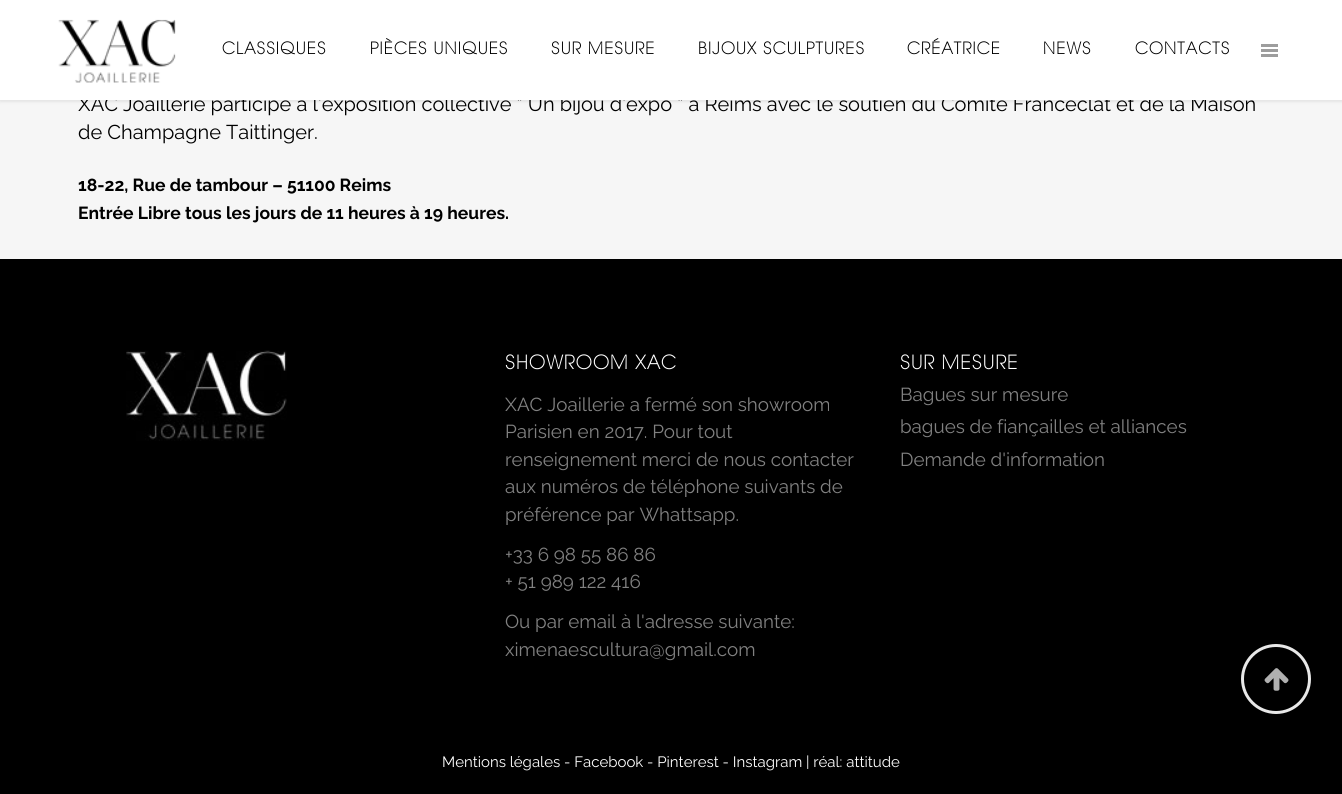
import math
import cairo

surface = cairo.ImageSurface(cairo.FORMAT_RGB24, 1342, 794)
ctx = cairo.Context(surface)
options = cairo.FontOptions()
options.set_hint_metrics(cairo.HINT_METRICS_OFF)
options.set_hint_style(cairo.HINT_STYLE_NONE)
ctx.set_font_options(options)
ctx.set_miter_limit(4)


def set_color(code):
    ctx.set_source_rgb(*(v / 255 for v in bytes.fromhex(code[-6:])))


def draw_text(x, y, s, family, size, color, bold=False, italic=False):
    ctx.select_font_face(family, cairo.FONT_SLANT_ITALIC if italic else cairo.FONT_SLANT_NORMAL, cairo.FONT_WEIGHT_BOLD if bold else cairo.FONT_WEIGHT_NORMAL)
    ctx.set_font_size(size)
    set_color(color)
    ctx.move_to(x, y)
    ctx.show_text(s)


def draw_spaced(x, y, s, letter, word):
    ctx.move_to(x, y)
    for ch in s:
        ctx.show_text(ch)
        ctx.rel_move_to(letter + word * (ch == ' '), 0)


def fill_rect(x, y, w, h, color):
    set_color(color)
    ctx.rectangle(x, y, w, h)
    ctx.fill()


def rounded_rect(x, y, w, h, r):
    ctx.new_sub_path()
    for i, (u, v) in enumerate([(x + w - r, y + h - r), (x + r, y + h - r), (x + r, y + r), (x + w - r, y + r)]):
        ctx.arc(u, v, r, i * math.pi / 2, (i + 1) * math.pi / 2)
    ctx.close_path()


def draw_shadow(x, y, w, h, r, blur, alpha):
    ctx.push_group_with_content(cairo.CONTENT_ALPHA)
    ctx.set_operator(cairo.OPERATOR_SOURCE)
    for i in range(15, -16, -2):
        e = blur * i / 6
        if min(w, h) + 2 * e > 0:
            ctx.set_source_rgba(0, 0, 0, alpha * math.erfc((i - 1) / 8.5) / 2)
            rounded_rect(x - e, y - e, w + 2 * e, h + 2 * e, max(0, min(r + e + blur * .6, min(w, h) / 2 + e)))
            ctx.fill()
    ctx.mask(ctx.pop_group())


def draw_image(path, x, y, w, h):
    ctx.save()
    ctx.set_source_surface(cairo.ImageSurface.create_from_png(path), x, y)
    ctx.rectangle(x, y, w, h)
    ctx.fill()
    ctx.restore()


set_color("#f6f6f6")
ctx.paint()
set_color("#000000")
draw_shadow(0, 1, 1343, 100, 0, 2, 0.11)
draw_text(78, 111, "XAC Joaillerie participe a l’exposition collective ” Un bijou d’expo ” à Reims avec le soutien du Comité Francéclat et de la Maison", "Raleway", 20, "#000000")
fill_rect(0, 0, 1342, 100, "#ffffff")
draw_image("assets/img1.png", 58, 19, 118, 64)
ctx.select_font_face("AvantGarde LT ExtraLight", cairo.FONT_SLANT_NORMAL, cairo.FONT_WEIGHT_BOLD)
ctx.set_font_size(16.25)
set_color("#000000")
draw_spaced(222, 54, "CLASSIQUES", 1.25, 0)
draw_spaced(370, 54, "PIÈCES UNIQUES", 1.25, 0)
draw_spaced(551, 54, "SUR MESURE", 1.25, 0)
draw_spaced(698, 54, "BIJOUX SCULPTURES", 1.25, 0)
draw_spaced(907, 54, "CRÉATRICE", 1.25, 0)
draw_spaced(1043, 54, "NEWS", 1.25, 0)
draw_spaced(1135, 54, "CONTACTS", 1.25, 0)
fill_rect(1261, 49, 17, 3, "#9d9d9d")
fill_rect(1261, 44, 17, 3, "#9d9d9d")
fill_rect(1261, 54, 17, 3, "#9d9d9d")
draw_text(78, 139, "de Champagne Taittinger.", "Raleway", 20, "#000000")
draw_text(78, 191, "18-22, Rue de tambour – 51100 Reims", "Raleway", 17.5, "#000000", bold=True)
draw_text(78, 219, "Entrée Libre tous les jours de 11 heures à 19 heures.", "Raleway", 17.5, "#000000", bold=True)
fill_rect(0, 259, 1342, 535, "#000000")
draw_image("assets/img2.png", 126, 350, 161, 91)
ctx.select_font_face("AvantGarde LT ExtraLight", cairo.FONT_SLANT_NORMAL, cairo.FONT_WEIGHT_BOLD)
ctx.set_font_size(18.75)
set_color("#ffffff")
draw_spaced(505, 369, "SHOWROOM XAC", 1.25, 0)
draw_text(505, 411, "XAC Joaillerie a fermé son showroom", "Raleway", 18.8, "#818181")
draw_text(505, 438, "Parisien en 2017. Pour tout", "Raleway", 18.8, "#818181")
draw_text(505, 466, "renseignement merci de nous contacter", "Raleway", 18.8, "#818181")
draw_text(505, 493, "aux numéros de téléphone suivants de", "Raleway", 18.8, "#818181")
draw_text(505, 521, "préférence par Whattsapp.", "Raleway", 18.8, "#818181")
draw_text(505, 561, "+33 6 98 55 86 86", "Raleway", 18.8, "#818181")
draw_text(505, 588, "+ 51 989 122 416", "Raleway", 18.8, "#818181")
draw_text(505, 628, "Ou par email à l'adresse suivante:", "Raleway", 18.8, "#818181")
draw_text(505, 656, "ximenaescultura@gmail.com", "Raleway", 18.8, "#818181")
ctx.select_font_face("AvantGarde LT ExtraLight", cairo.FONT_SLANT_NORMAL, cairo.FONT_WEIGHT_BOLD)
ctx.set_font_size(18.75)
set_color("#ffffff")
draw_spaced(900, 369, "SUR MESURE", 1.25, 0)
draw_text(900, 401, "Bagues sur mesure", "Raleway", 18.8, "#818181")
draw_text(900, 433, "bagues de fiançailles et alliances", "Raleway", 18.8, "#818181")
draw_text(900, 466, "Demande d'information", "Raleway", 18.8, "#818181")
draw_text(442, 767, "Mentions légales - Facebook - Pinterest - Instagram | réal: attitude", "Raleway", 15, "#ffffff")
ctx.new_path()
ctx.arc(1276, 679, 33.5, 0, 2 * math.pi)
set_color("#e8e8e8")
ctx.set_line_width(3)
ctx.stroke()
draw_image("assets/img3.png", 1264, 668, 25, 23)
surface.write_to_png("output.png")
